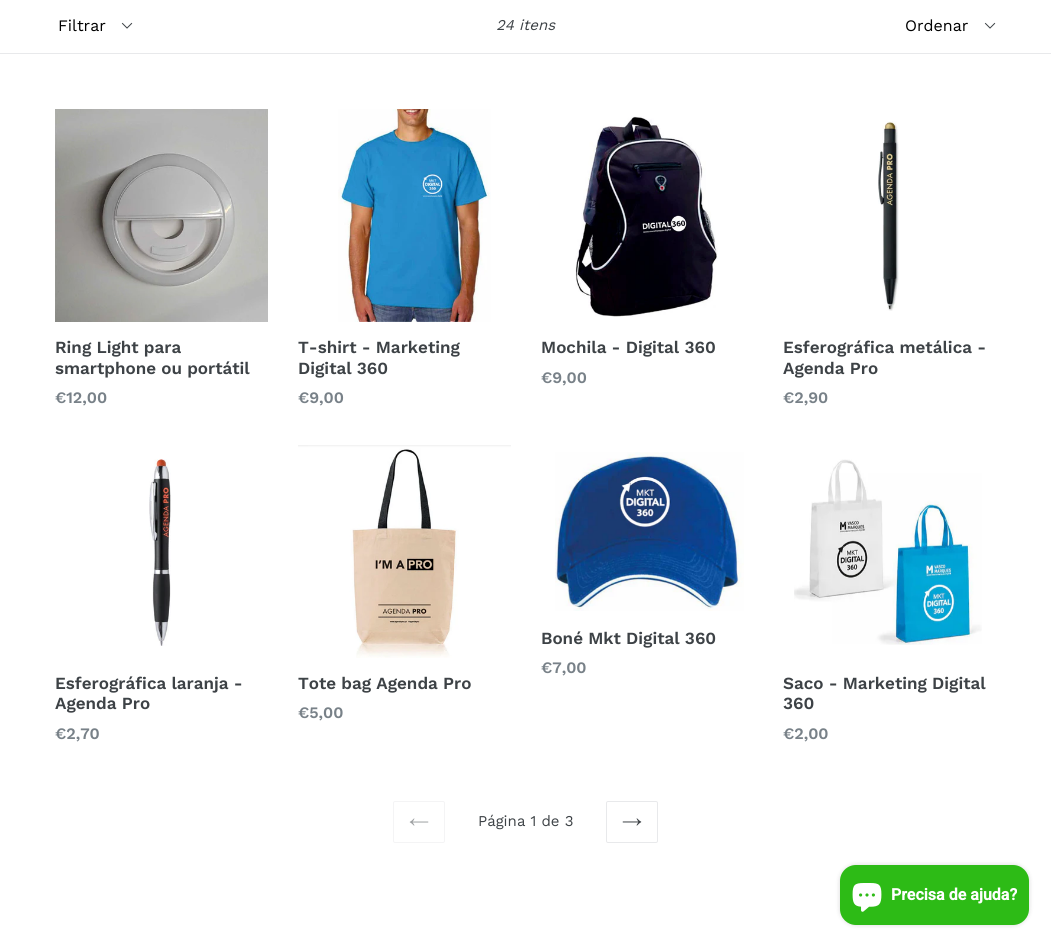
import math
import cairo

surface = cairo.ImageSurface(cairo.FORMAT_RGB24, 1051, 946)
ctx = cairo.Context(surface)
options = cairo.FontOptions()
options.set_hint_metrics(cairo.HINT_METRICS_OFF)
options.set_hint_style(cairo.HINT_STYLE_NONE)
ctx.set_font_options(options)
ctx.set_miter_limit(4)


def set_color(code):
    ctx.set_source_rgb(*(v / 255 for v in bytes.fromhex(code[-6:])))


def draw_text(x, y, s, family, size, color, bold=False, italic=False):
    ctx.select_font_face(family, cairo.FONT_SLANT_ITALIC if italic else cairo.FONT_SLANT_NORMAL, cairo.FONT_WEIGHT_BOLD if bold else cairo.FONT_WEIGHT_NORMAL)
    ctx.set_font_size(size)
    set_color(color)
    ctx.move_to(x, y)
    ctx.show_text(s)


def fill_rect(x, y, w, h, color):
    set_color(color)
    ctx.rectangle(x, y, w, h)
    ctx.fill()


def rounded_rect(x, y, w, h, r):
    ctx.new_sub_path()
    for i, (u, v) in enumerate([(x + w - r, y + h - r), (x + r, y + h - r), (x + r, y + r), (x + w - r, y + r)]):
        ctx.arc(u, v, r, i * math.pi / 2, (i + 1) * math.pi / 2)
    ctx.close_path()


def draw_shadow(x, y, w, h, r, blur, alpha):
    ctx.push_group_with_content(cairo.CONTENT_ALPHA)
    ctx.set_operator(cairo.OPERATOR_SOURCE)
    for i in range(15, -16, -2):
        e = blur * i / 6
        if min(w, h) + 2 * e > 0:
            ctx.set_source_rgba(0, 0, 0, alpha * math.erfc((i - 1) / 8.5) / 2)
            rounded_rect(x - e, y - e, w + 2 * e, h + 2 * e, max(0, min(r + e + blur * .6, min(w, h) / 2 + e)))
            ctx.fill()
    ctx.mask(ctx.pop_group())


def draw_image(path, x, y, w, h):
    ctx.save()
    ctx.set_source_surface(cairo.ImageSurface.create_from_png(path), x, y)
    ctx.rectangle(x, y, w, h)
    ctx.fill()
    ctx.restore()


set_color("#ffffff")
ctx.paint()
fill_rect(0, 53, 1051, 1, "#e8e9eb")
draw_image("assets/img1.png", 121, 22, 12, 7)
draw_text(58, 31, "Filtrar", "Work Sans", 16, "#000000")
draw_text(496, 30, "24 itens", "Work Sans", 15, "#3d4246", italic=True)
draw_image("assets/img1.png", 984, 22, 12, 7)
draw_text(905, 31, "Ordenar", "Work Sans", 16, "#000000")
draw_image("assets/img2.png", 55, 109, 213, 213)
draw_text(55, 353, "Ring Light para", "Work Sans SemiBold", 17, "#3d4246")
draw_text(55, 374, "smartphone ou portátil", "Work Sans SemiBold", 17, "#3d4246")
draw_text(55, 403, "€12,00", "Work Sans SemiBold", 16, "#788188")
draw_image("assets/img3.png", 338, 109, 153, 213)
draw_text(298, 353, "T-shirt - Marketing", "Work Sans SemiBold", 17, "#3d4246")
draw_text(298, 374, "Digital 360", "Work Sans SemiBold", 17, "#3d4246")
draw_text(298, 403, "€9,00", "Work Sans SemiBold", 16, "#788188")
draw_image("assets/img4.png", 575, 116, 143, 201)
draw_text(541, 353, "Mochila - Digital 360", "Work Sans SemiBold", 17, "#3d4246")
draw_text(541, 383, "€9,00", "Work Sans SemiBold", 16, "#788188")
draw_image("assets/img5.png", 878, 121, 21, 190)
draw_text(783, 353, "Esferográfica metálica -", "Work Sans SemiBold", 17, "#3d4246")
draw_text(783, 374, "Agenda Pro", "Work Sans SemiBold", 17, "#3d4246")
draw_text(783, 403, "€2,90", "Work Sans SemiBold", 16, "#788188")
draw_image("assets/img6.png", 555, 452, 189, 159)
draw_text(541, 644, "Boné Mkt Digital 360", "Work Sans SemiBold", 17, "#3d4246")
draw_text(541, 673, "€7,00", "Work Sans SemiBold", 16, "#788188")
draw_image("assets/img7.png", 149, 459, 22, 187)
draw_text(55, 689, "Esferográfica laranja -", "Work Sans SemiBold", 17, "#3d4246")
draw_text(55, 709, "Agenda Pro", "Work Sans SemiBold", 17, "#3d4246")
draw_text(55, 739, "€2,70", "Work Sans SemiBold", 16, "#788188")
draw_image("assets/img8.png", 298, 445, 213, 213)
draw_text(298, 689, "Tote bag Agenda Pro", "Work Sans SemiBold", 17, "#3d4246")
draw_text(298, 718, "€5,00", "Work Sans SemiBold", 16, "#788188")
draw_image("assets/img9.png", 794, 459, 188, 186)
draw_text(783, 689, "Saco - Marketing Digital", "Work Sans SemiBold", 17, "#3d4246")
draw_text(783, 709, "360", "Work Sans SemiBold", 17, "#3d4246")
draw_text(783, 739, "€2,00", "Work Sans SemiBold", 16, "#788188")
rounded_rect(393.5, 801.5, 51, 41, 1.5)
set_color("#f4f4f5")
ctx.set_line_width(1)
ctx.stroke()
draw_image("assets/img10.png", 409, 818, 20, 8)
draw_text(478, 826, "Página 1 de 3", "Work Sans", 15, "#3d4246")
rounded_rect(606.5, 801.5, 51, 41, 1.5)
set_color("#e8e9eb")
ctx.stroke()
draw_image("assets/img11.png", 622, 818, 20, 8)
set_color("#000000")
draw_shadow(840, 865, 189, 60, 16, 2.5, 0.15)
set_color("#2dbb16")
rounded_rect(840, 865, 189, 60, 16)
ctx.fill()
draw_image("assets/img12.png", 852, 883, 30, 29)
draw_text(891, 900, "Precisa de ajuda?", "Roboto", 16, "#ffffff", bold=True)
surface.write_to_png("output.png")
